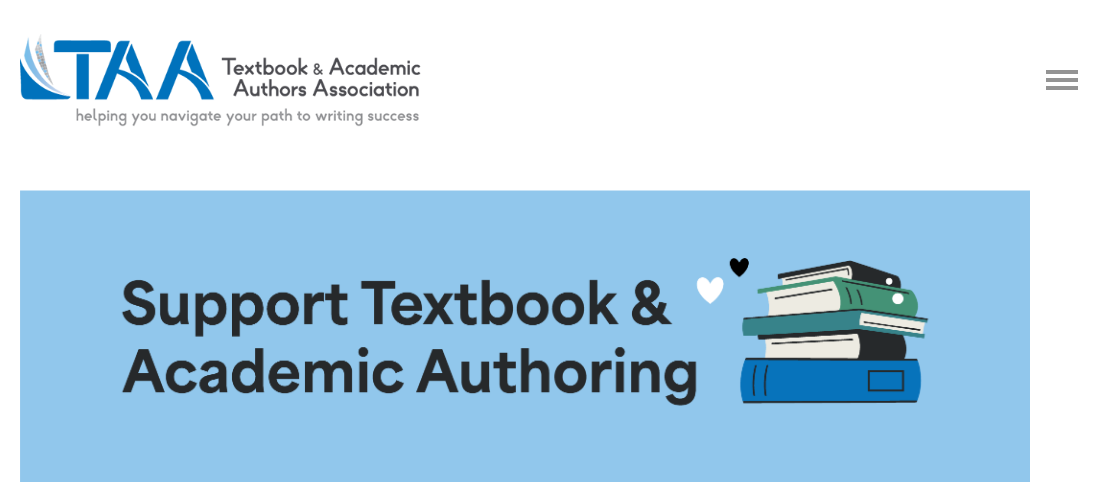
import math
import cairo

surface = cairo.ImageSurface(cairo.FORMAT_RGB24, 1098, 482)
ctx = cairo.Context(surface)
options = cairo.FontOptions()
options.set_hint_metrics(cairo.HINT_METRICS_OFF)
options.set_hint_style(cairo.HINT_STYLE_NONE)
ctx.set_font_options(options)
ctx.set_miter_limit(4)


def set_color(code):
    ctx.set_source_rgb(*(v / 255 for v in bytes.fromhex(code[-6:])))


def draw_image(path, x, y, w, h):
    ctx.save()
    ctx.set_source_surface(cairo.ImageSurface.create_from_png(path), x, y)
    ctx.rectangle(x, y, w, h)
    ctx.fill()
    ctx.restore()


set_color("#ffffff")
ctx.paint()
draw_image("assets/img1.png", 20, 34, 401, 93)
draw_image("assets/img2.png", 1046, 70, 32, 20)
draw_image("assets/img3.png", 20, 190, 1010, 292)
surface.write_to_png("output.png")
